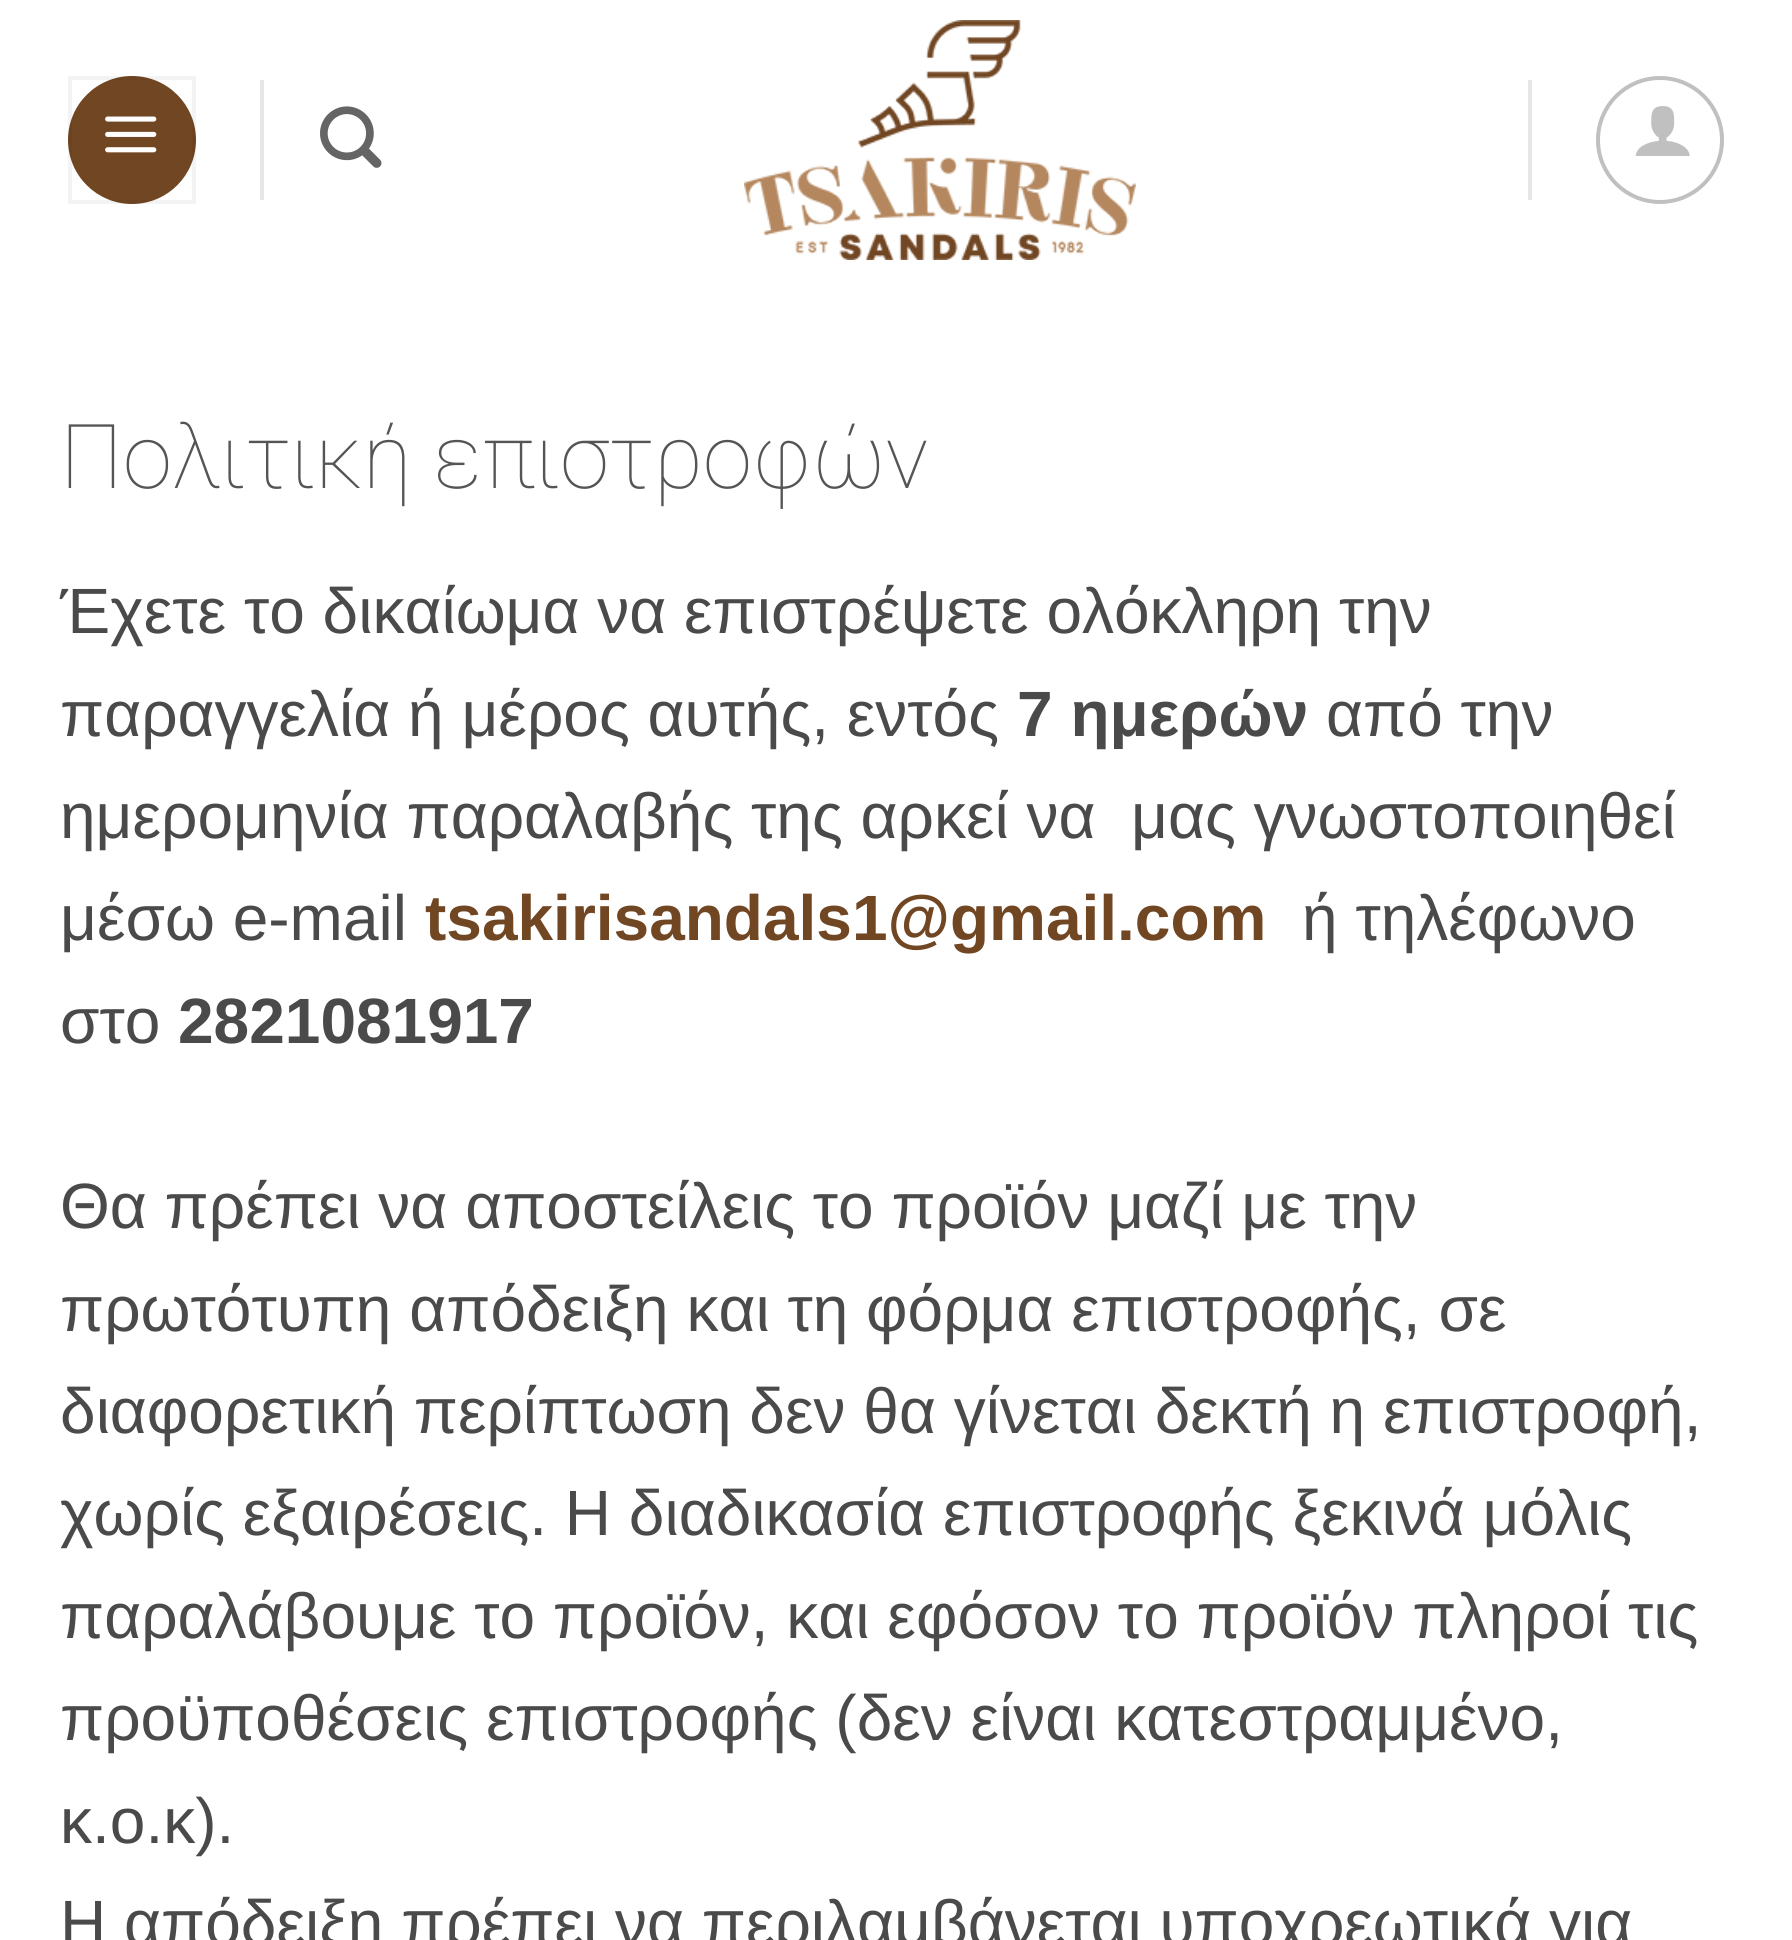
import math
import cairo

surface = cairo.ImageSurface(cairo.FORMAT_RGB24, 1792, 1940)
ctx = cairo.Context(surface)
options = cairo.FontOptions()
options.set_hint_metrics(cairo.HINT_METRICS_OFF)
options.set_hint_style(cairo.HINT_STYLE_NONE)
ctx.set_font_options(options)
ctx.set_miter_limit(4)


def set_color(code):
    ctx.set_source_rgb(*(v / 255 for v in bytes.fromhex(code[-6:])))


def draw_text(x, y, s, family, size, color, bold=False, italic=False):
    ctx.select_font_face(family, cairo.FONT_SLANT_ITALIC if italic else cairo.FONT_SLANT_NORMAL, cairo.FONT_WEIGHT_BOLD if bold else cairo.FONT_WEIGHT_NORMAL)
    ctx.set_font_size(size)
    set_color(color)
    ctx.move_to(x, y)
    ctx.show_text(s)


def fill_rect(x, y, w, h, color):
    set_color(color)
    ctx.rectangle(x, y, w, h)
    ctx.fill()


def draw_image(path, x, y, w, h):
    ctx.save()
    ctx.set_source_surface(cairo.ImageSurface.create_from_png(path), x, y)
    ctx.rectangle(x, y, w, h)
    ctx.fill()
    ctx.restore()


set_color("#ffffff")
ctx.paint()
set_color("#714623")
ctx.arc(132, 140, 64, 0, 2 * math.pi)
ctx.fill()
ctx.rectangle(70, 78, 124, 124)
ctx.set_source_rgba(0, 0, 0, 0.05)
ctx.set_line_width(4)
ctx.stroke()
draw_image("assets/img1.png", 105, 116, 52, 37)
fill_rect(260, 80, 4, 120, "#e6e6e6")
draw_image("assets/img2.png", 320, 106, 62, 62)
draw_image("assets/img3.png", 744, 20, 392, 240)
fill_rect(1528, 80, 4, 120, "#e6e6e6")
ctx.arc(1660, 140, 62, 0, 2 * math.pi)
set_color("#c0c0c0")
ctx.stroke()
draw_image("assets/img4.png", 1635, 106, 55, 50)
draw_text(60, 488, "Πολιτική επιστροφών", "Roboto Thin", 89.5, "#555555")
draw_text(60, 633, "Έχετε το δικαίωμα να επιστρέψετε ολόκληρη την", "Liberation Sans", 64, "#4a4a4a")
draw_text(60, 736, "παραγγελία ή μέρος αυτής, εντός", "Liberation Sans", 64, "#4a4a4a")
draw_text(1017, 736, "7 ημερών", "Liberation Sans", 64, "#4a4a4a", bold=True)
draw_text(1326, 736, "από την", "Liberation Sans", 64, "#4a4a4a")
draw_text(60, 838, "ημερομηνία παραλαβής της αρκεί να  μας γνωστοποιηθεί", "Liberation Sans", 64, "#4a4a4a")
draw_text(60, 940, "μέσω e-mail", "Liberation Sans", 64, "#4a4a4a")
draw_text(425, 940, "tsakirisandals1@gmail.com", "Liberation Sans", 64, "#714623", bold=True)
draw_text(1302, 940, "ή τηλέφωνο", "Liberation Sans", 64, "#4a4a4a")
draw_text(60, 1043, "στο", "Liberation Sans", 64, "#4a4a4a")
draw_text(178, 1043, "2821081917", "Liberation Sans", 64, "#4a4a4a", bold=True)
draw_text(60, 1228, "Θα πρέπει να αποστείλεις το προϊόν μαζί με την", "Liberation Sans", 64, "#4a4a4a")
draw_text(60, 1331, "πρωτότυπη απόδειξη και τη φόρμα επιστροφής, σε", "Liberation Sans", 64, "#4a4a4a")
draw_text(60, 1433, "διαφορετική περίπτωση δεν θα γίνεται δεκτή η επιστροφή,", "Liberation Sans", 64, "#4a4a4a")
draw_text(60, 1535, "χωρίς εξαιρέσεις. Η διαδικασία επιστροφής ξεκινά μόλις", "Liberation Sans", 64, "#4a4a4a")
draw_text(60, 1638, "παραλάβουμε το προϊόν, και εφόσον το προϊόν πληροί τις", "Liberation Sans", 64, "#4a4a4a")
draw_text(60, 1740, "προϋποθέσεις επιστροφής (δεν είναι κατεστραμμένο,", "Liberation Sans", 64, "#4a4a4a")
draw_text(60, 1843, "κ.ο.κ).", "Liberation Sans", 64, "#4a4a4a")
draw_text(60, 1945, "Η απόδειξη πρέπει να περιλαμβάνεται υποχρεωτικά για", "Liberation Sans", 64, "#4a4a4a")
surface.write_to_png("output.png")
